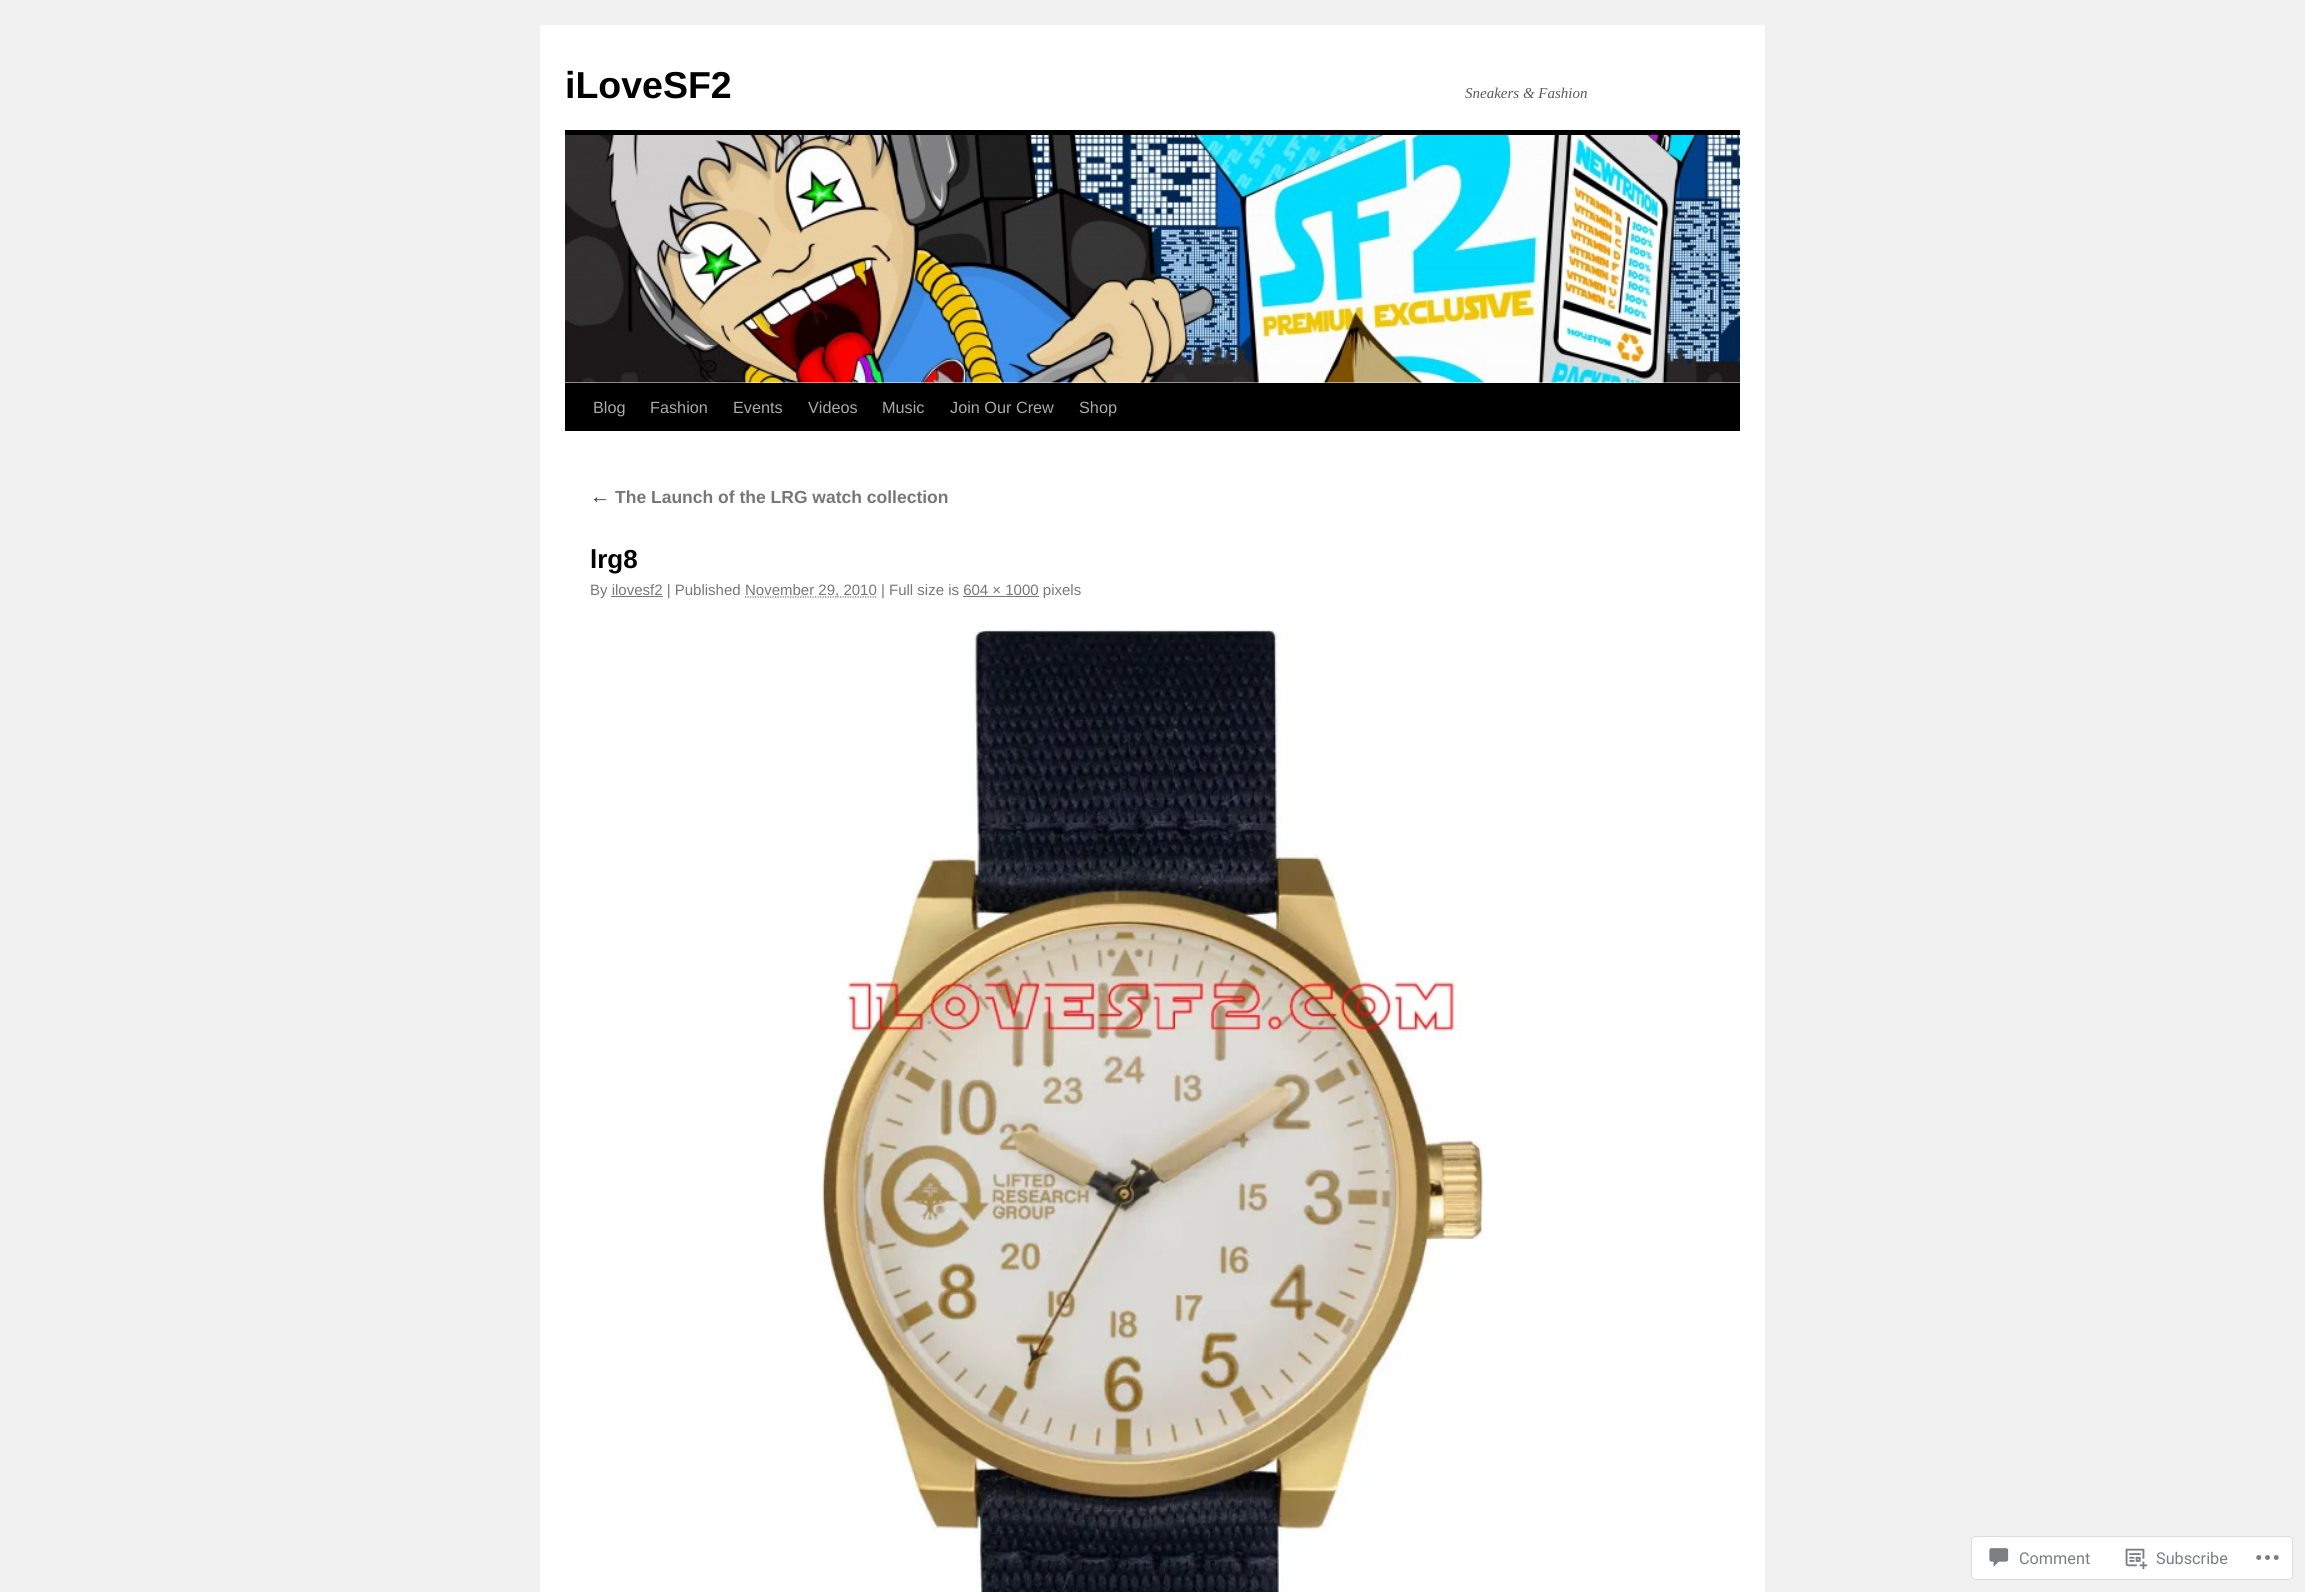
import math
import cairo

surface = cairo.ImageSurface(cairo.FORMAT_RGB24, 2305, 1592)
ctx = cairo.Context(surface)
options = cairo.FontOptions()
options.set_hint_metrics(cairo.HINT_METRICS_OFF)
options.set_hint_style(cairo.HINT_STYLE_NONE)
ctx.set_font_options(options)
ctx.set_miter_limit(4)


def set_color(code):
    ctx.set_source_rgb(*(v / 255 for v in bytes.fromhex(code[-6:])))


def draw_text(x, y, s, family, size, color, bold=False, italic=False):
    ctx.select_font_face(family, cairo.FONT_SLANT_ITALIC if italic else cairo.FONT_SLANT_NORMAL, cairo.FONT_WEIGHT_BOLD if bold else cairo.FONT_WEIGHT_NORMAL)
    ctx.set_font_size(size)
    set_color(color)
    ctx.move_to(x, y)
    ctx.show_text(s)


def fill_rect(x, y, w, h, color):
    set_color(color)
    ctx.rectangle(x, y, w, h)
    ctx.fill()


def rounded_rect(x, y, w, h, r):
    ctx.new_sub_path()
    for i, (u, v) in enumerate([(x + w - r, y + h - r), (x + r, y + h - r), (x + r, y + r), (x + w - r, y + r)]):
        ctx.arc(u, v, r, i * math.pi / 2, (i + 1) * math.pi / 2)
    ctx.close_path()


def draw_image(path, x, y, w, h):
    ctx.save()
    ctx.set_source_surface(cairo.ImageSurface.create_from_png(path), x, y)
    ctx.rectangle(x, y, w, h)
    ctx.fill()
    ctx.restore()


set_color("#f1f1f1")
ctx.paint()
fill_rect(540, 25, 1225, 1567, "#ffffff")
draw_text(565, 98, "iLoveSF2", "Liberation Sans", 37.5, "#000000", bold=True)
draw_text(1465, 98, "Sneakers & Fashion", "Liberation Serif", 15, "#595959", italic=True)
fill_rect(565, 130, 1175, 5, "#000000")
fill_rect(565, 383, 1175, 48, "#000000")
draw_image("assets/img1.png", 565, 135, 1175, 248)
draw_text(593, 413, "Blog", "Liberation Sans", 16.25, "#aaaaaa")
draw_text(650, 413, "Fashion", "Liberation Sans", 16.25, "#aaaaaa")
draw_text(733, 413, "Events", "Liberation Sans", 16.25, "#aaaaaa")
draw_text(808, 413, "Videos", "Liberation Sans", 16.25, "#aaaaaa")
draw_text(882, 413, "Music", "Liberation Sans", 16.25, "#aaaaaa")
draw_text(950, 413, "Join Our Crew", "Liberation Sans", 16.25, "#aaaaaa")
draw_text(1079, 413, "Shop", "Liberation Sans", 16.25, "#aaaaaa")
draw_text(590, 503, "←", "Liberation Serif", 20, "#333333", italic=True)
draw_text(615, 503, "The Launch of the LRG watch collection", "Liberation Sans", 17.5, "#777777", bold=True)
draw_text(590, 568, "lrg8", "Liberation Sans", 26, "#000000", bold=True)
draw_text(590, 595, "By ilovesf2 | Published", "Liberation Sans", 15, "#777777")
ctx.new_path()
ctx.move_to(745, 597)
ctx.line_to(876.5, 597)
ctx.set_line_width(1.2)
ctx.set_dash([1.25, 1.25])
ctx.stroke()
draw_text(745, 595, "November 29, 2010 | Full size is 604 × 1000 pixels", "Liberation Sans", 15, "#777777")
fill_rect(611, 596, 52, 1, "#777777")
fill_rect(963, 596, 76, 1, "#777777")
draw_image("assets/img2.png", 821, 630, 663, 962)
set_color("#ffffff")
rounded_rect(1971.5, 1536.5, 321, 43, 3.5)
ctx.fill_preserve()
set_color("#dcdcde")
ctx.set_line_width(1)
ctx.set_dash([])
ctx.stroke()
draw_image("assets/img3.png", 1989, 1548, 20, 19)
draw_text(2019, 1564, "Comment", "Roboto", 16.25, "#7a7e84")
draw_image("assets/img4.png", 2125, 1548, 23, 22)
draw_text(2156, 1564, "Subscribe", "Roboto", 16.25, "#7a7e84")
draw_image("assets/img5.png", 2256, 1555, 23, 5)
surface.write_to_png("output.png")
